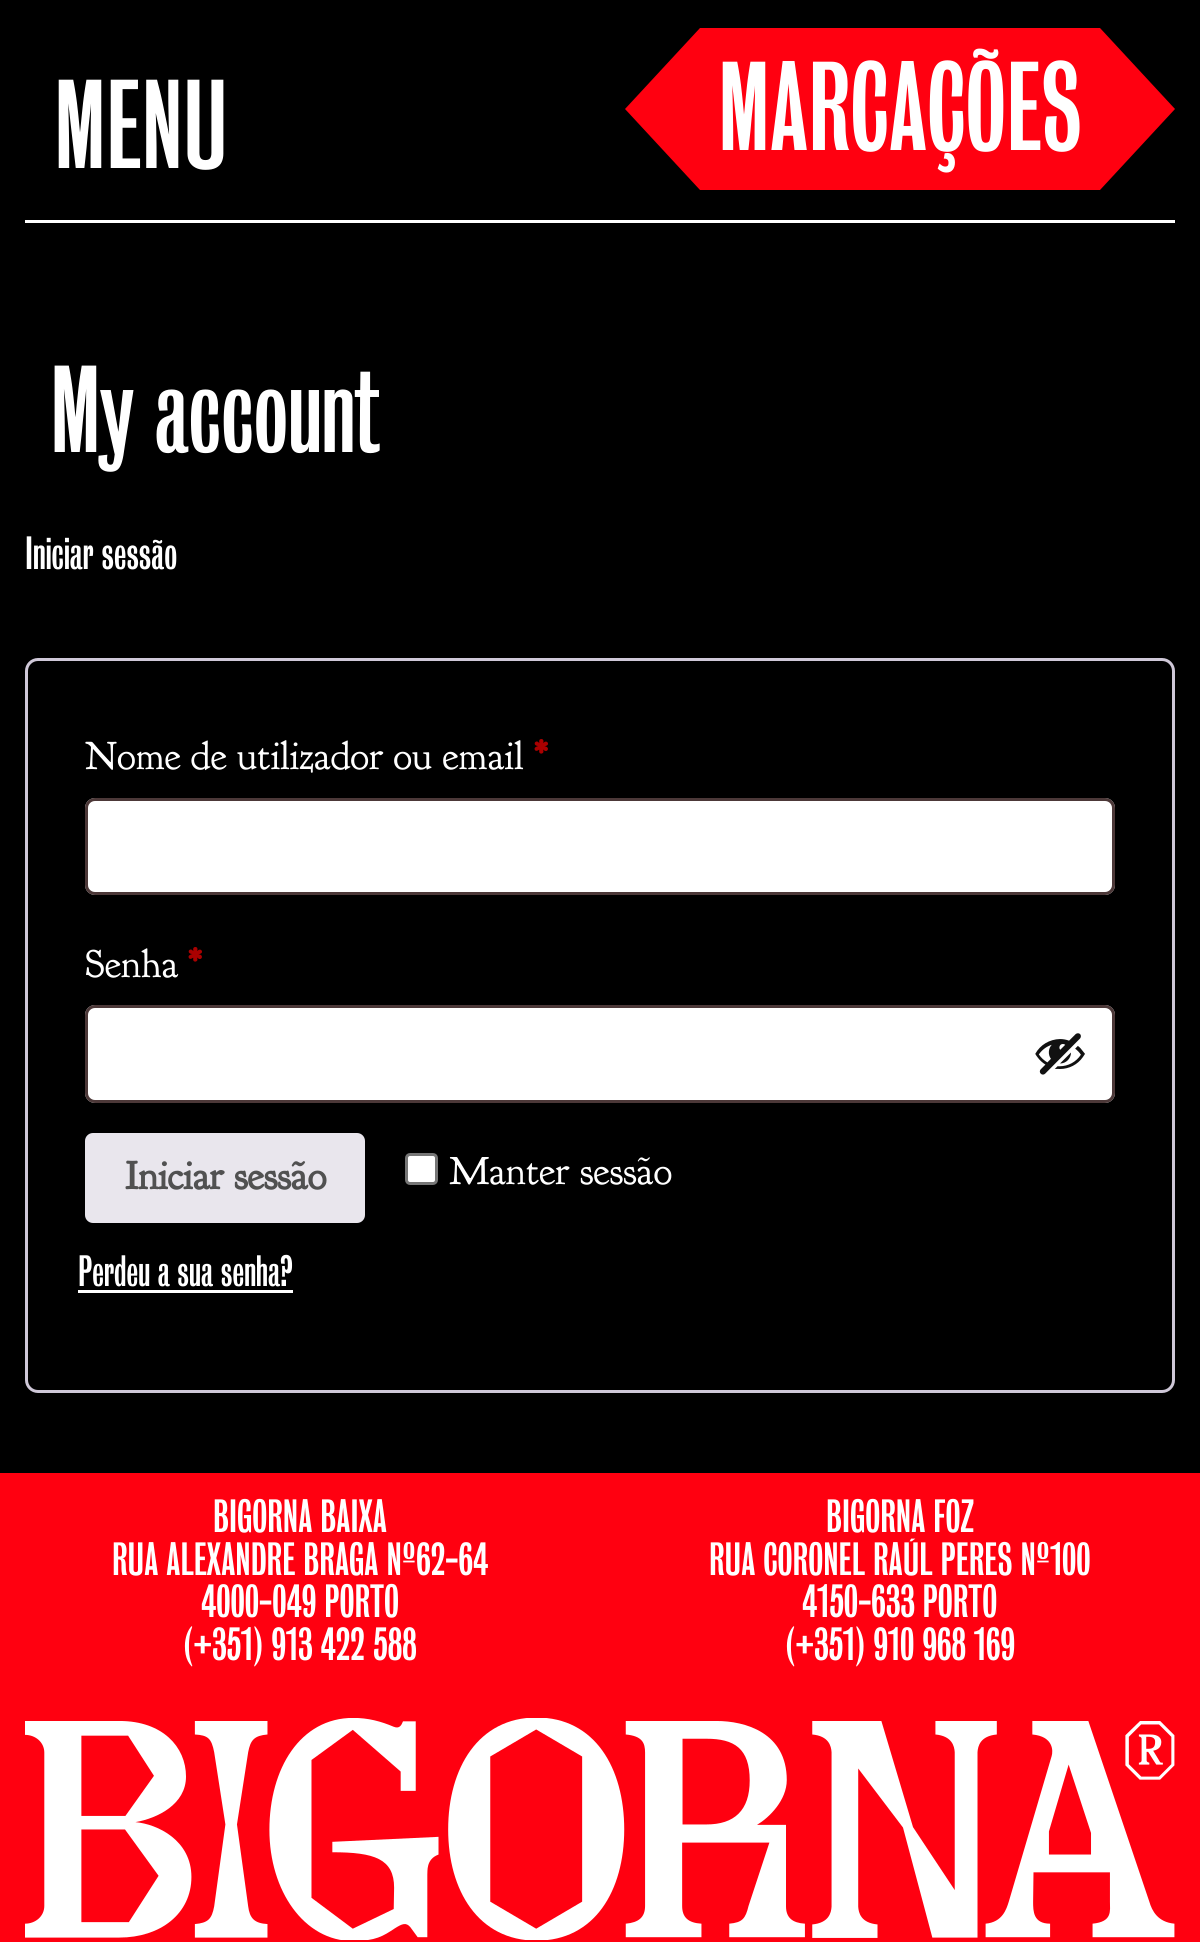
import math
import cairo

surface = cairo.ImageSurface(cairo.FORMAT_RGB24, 1200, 1942)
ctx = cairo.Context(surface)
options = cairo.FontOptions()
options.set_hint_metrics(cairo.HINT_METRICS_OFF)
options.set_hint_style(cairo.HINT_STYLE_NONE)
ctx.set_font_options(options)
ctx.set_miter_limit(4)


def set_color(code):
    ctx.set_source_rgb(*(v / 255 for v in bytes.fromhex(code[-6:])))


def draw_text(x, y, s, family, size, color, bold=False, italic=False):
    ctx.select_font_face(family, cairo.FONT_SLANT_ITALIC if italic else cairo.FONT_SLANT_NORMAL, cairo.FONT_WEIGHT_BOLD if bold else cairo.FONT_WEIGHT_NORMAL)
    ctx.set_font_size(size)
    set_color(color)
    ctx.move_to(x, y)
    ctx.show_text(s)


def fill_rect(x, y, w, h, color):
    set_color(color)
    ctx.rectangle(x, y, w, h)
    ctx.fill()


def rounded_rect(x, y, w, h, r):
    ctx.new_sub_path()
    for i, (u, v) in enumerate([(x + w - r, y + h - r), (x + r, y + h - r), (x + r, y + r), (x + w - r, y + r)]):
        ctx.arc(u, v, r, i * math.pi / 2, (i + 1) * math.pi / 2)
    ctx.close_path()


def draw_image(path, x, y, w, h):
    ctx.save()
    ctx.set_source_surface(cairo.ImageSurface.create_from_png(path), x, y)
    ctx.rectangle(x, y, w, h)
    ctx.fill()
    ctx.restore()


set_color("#000000")
ctx.paint()
draw_text(54, 168, "MENU", "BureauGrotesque", 115, "#ffffff")
set_color("#ff0010")
ctx.new_path()
ctx.move_to(700, 28)
ctx.line_to(625, 109)
ctx.line_to(700, 190)
ctx.line_to(1100, 190)
ctx.line_to(1175, 109)
ctx.line_to(1100, 28)
ctx.close_path()
ctx.fill()
draw_text(718, 150, "MARCAÇÕES", "BureauGrotesque", 115, "#ffffff")
fill_rect(25, 220, 1150, 3, "#ffffff")
draw_text(50, 452, "My account", "BureauGrotesque", 112.5, "#ffffff")
draw_text(25, 569, "Iniciar sessão", "BureauGrotesque", 42.5, "#ffffff")
rounded_rect(26.5, 659.5, 1147, 732, 11.5)
set_color("#cfc8d8")
ctx.set_line_width(3)
ctx.stroke()
draw_text(85, 769, "Nome de utilizador ou email", "Goudy Bookletter 1911", 40, "#ffffff")
draw_text(534, 769, "*", "Goudy Bookletter 1911", 40, "#aa0000", bold=True)
set_color("#ffffff")
rounded_rect(85, 798, 1030, 97, 10)
ctx.fill()
rounded_rect(86.5, 799.5, 1027, 94, 8.5)
ctx.set_source_rgba(0.125, 0.027, 0.027, 0.8)
ctx.stroke()
draw_text(85, 977, "Senha", "Goudy Bookletter 1911", 40, "#ffffff")
draw_text(188, 977, "*", "Goudy Bookletter 1911", 40, "#aa0000", bold=True)
set_color("#ffffff")
rounded_rect(85, 1005, 1030, 98, 10)
ctx.fill()
rounded_rect(86.5, 1006.5, 1027, 95, 8.5)
ctx.set_source_rgba(0.125, 0.027, 0.027, 0.8)
ctx.stroke()
draw_image("assets/img1.png", 1035, 1033, 50, 42)
set_color("#e9e6ed")
rounded_rect(85, 1133, 280, 90, 8)
ctx.fill()
draw_text(125, 1189, "Iniciar sessão", "Goudy Bookletter 1911", 40, "#515151", bold=True)
set_color("#ffffff")
rounded_rect(406.5, 1154.5, 30, 29, 3.5)
ctx.fill_preserve()
set_color("#767676")
ctx.stroke()
draw_text(449, 1184, "Manter sessão", "Goudy Bookletter 1911", 40, "#ffffff")
draw_text(78, 1286, "Perdeu a sua senha?", "BureauGrotesque", 40, "#ffffff")
fill_rect(78, 1290, 215, 3, "#ffffff")
fill_rect(0, 1473, 1200, 469, "#ff0010")
draw_text(213, 1532, "BIGORNA BAIXA", "BureauGrotesque", 42.5, "#ffffff")
draw_text(112, 1575, "RUA ALEXANDRE BRAGA Nº62-64", "BureauGrotesque", 42.5, "#ffffff")
draw_text(201, 1617, "4000-049 PORTO", "BureauGrotesque", 42.5, "#ffffff")
draw_text(183, 1660, "(+351) 913 422 588", "BureauGrotesque", 42.5, "#ffffff")
draw_text(826, 1532, "BIGORNA FOZ", "BureauGrotesque", 42.5, "#ffffff")
draw_text(709, 1575, "RUA CORONEL RAÚL PERES Nº100", "BureauGrotesque", 42.5, "#ffffff")
draw_text(802, 1617, "4150-633 PORTO", "BureauGrotesque", 42.5, "#ffffff")
draw_text(785, 1660, "(+351) 910 968 169", "BureauGrotesque", 42.5, "#ffffff")
draw_image("assets/img2.png", 25, 1718, 1150, 222)
surface.write_to_png("output.png")
